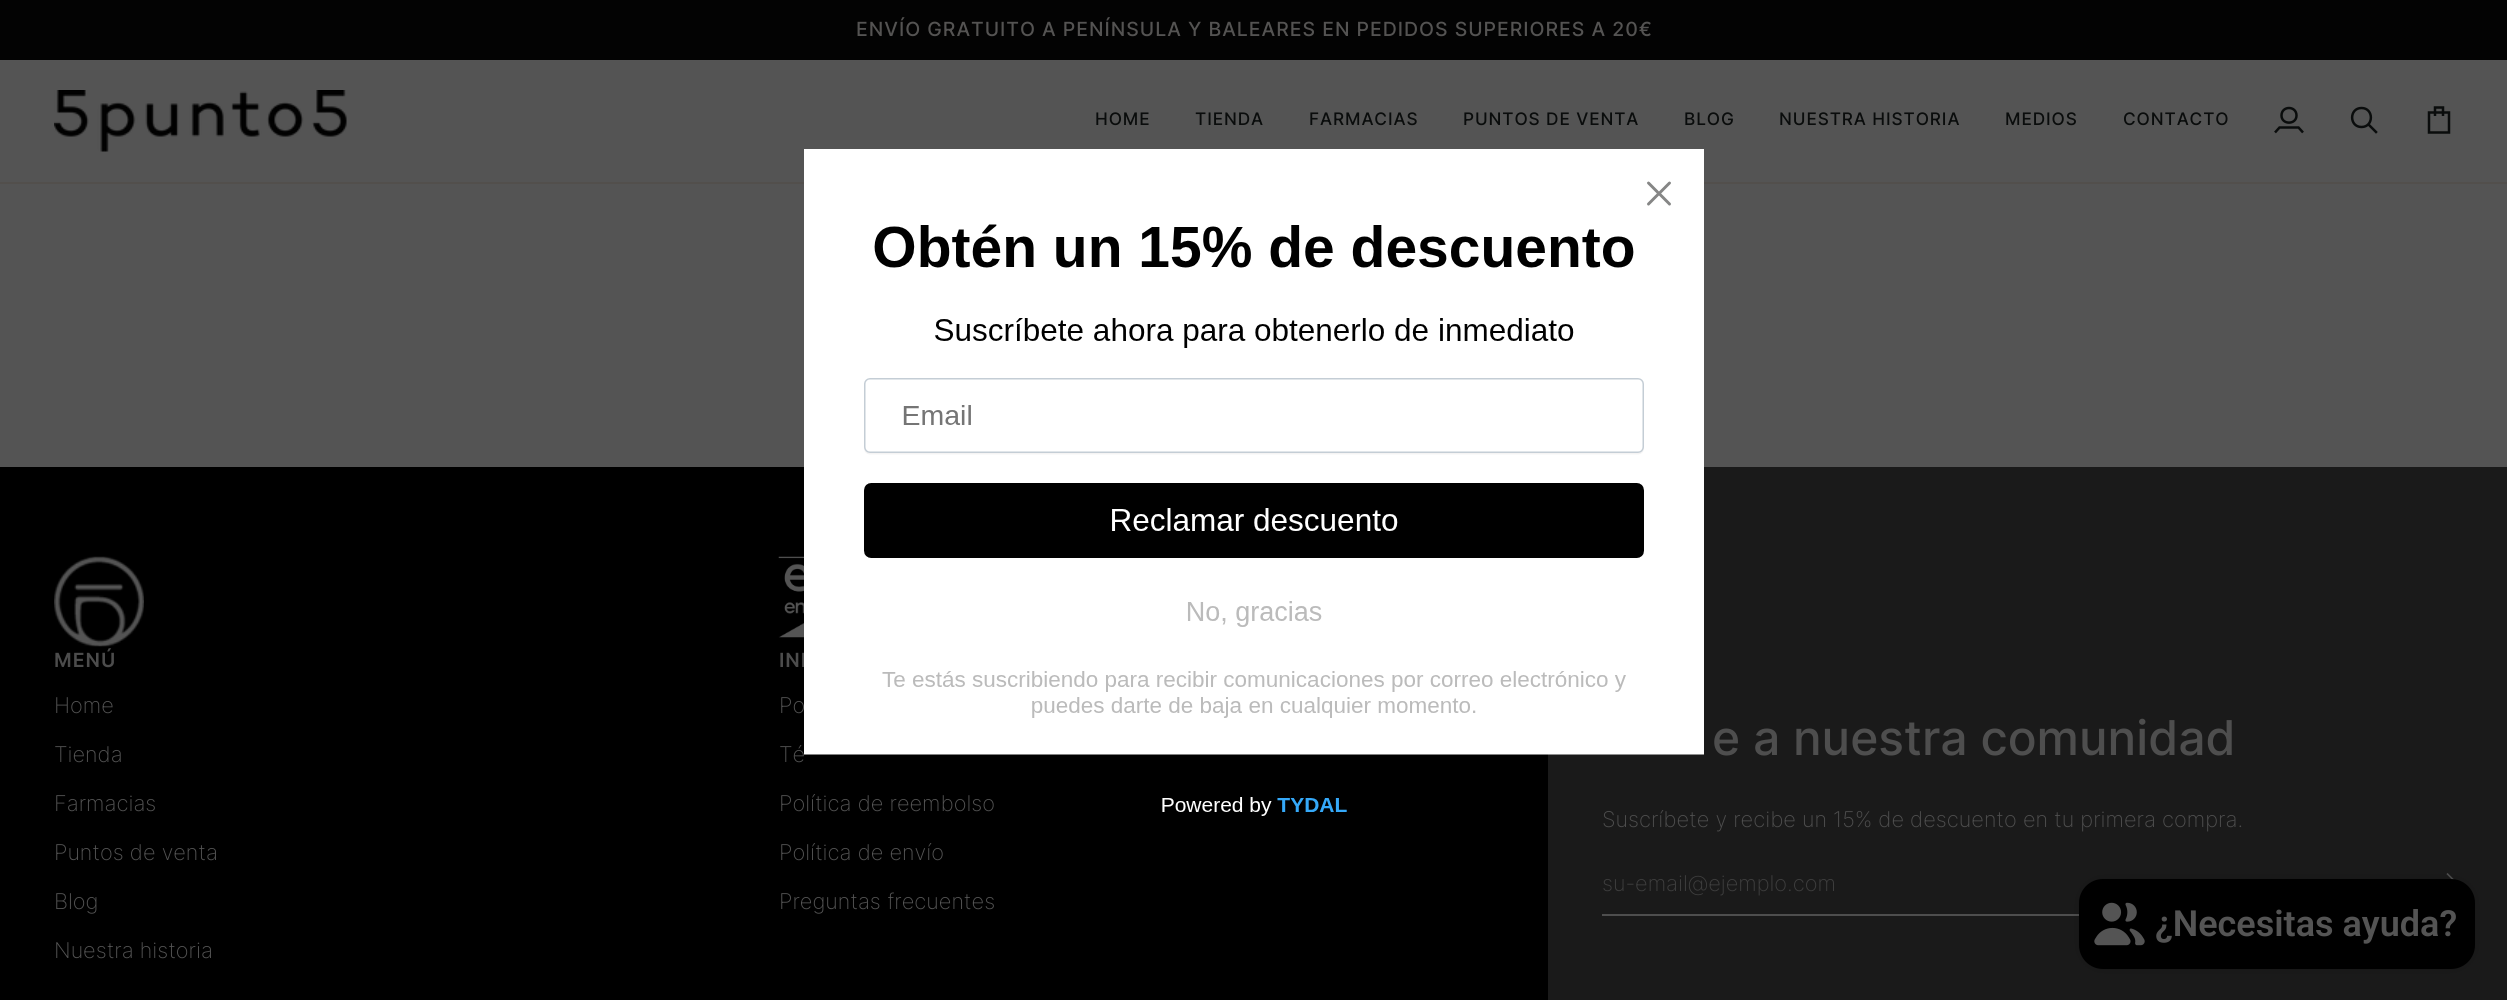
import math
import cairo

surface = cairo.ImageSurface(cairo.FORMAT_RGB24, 2507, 1000)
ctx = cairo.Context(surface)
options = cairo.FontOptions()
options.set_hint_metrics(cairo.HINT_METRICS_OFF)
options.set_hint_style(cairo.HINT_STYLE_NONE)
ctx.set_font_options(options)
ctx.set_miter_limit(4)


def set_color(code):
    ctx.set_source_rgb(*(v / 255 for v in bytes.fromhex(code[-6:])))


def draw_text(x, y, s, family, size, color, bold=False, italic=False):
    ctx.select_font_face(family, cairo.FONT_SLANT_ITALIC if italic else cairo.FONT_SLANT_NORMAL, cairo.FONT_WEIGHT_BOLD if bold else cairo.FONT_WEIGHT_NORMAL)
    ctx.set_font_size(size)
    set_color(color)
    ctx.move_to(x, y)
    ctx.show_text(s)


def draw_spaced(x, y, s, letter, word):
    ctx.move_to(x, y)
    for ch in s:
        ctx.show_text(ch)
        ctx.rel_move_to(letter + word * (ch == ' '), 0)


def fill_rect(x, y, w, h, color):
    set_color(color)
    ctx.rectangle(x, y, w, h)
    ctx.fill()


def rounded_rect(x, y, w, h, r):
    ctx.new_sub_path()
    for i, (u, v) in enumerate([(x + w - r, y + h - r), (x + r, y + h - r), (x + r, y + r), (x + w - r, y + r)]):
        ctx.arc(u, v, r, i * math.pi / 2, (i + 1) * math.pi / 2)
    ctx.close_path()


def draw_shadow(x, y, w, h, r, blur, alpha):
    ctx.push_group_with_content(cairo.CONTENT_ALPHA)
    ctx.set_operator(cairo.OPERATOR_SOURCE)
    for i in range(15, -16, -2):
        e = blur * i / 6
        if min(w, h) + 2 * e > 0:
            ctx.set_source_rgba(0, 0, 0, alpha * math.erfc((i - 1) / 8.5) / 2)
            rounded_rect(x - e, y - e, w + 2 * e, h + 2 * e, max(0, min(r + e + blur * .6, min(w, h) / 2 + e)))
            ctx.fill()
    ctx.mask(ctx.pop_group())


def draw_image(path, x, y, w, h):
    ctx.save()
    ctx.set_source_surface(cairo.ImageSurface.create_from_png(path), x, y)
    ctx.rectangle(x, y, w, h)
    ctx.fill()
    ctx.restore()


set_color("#ffffff")
ctx.paint()
fill_rect(0, 0, 2507, 60, "#080808")
ctx.select_font_face("Inter Medium")
ctx.set_font_size(19.5)
set_color("#fffcf9")
draw_spaced(856, 36, "ENVÍO GRATUITO A PENÍNSULA Y BALEARES EN PEDIDOS SUPERIORES A 20€", 0.98, 0)
fill_rect(0, 182, 2507, 2, "#f8f0e7")
draw_image("assets/img2.png", 54, 90, 293, 62)
ctx.set_font_size(17.25)
set_color("#1d2523")
draw_spaced(1095, 125, "HOME", 0.9, 0)
draw_spaced(1195, 125, "TIENDA", 0.9, 0)
draw_spaced(1309, 125, "FARMACIAS", 0.9, 0)
draw_spaced(1463, 125, "PUNTOS DE VENTA", 0.9, 0)
draw_spaced(1684, 125, "BLOG", 0.9, 0)
draw_spaced(1779, 125, "NUESTRA HISTORIA", 0.9, 0)
draw_spaced(2005, 125, "MEDIOS", 0.9, 0)
draw_spaced(2123, 125, "CONTACTO", 0.9, 0)
ctx.new_path()
ctx.move_to(2275, 132.5)
ctx.line_to(2279.5, 127.5)
ctx.line_to(2298.5, 127.5)
ctx.line_to(2303, 132.5)
ctx.move_to(2296.5, 115.5)
ctx.curve_to(2296.5, 125, 2281.5, 125, 2281.5, 115.5)
ctx.curve_to(2281.5, 105.5, 2296.5, 105.5, 2296.5, 115.5)
ctx.close_path()
ctx.set_line_width(2.5)
ctx.stroke()
ctx.new_path()
ctx.move_to(2361.5, 127)
ctx.curve_to(2374, 127, 2374, 108, 2361.5, 108)
ctx.curve_to(2349, 108, 2349, 127, 2361.5, 127)
ctx.close_path()
ctx.move_to(2376, 132)
ctx.line_to(2369, 125)
ctx.set_line_cap(cairo.LINE_CAP_SQUARE)
ctx.stroke()
ctx.new_path()
ctx.move_to(2429, 112.5)
ctx.line_to(2449, 112.5)
ctx.line_to(2449, 132.5)
ctx.line_to(2429, 132.5)
ctx.close_path()
ctx.move_to(2435, 116)
ctx.line_to(2435, 107.5)
ctx.line_to(2443, 107.5)
ctx.line_to(2443, 116)
ctx.set_line_cap(cairo.LINE_CAP_BUTT)
ctx.stroke()
fill_rect(0, 467, 1548, 533, "#000000")
draw_image("assets/img3.png", 54, 556, 90, 91)
draw_image("assets/img4.png", 778, 556, 26, 82)
ctx.select_font_face("Inter SemiBold")
ctx.set_font_size(19.5)
set_color("#e6e6e6")
draw_spaced(54, 667, "MENÚ", 0.98, 0)
draw_text(54, 713, "Home", "Inter ExtraLight", 21.75, "#ffffff")
draw_text(54, 762, "Tienda", "Inter ExtraLight", 21.75, "#ffffff")
draw_text(54, 811, "Farmacias", "Inter ExtraLight", 21.75, "#ffffff")
draw_text(54, 860, "Puntos de venta", "Inter ExtraLight", 21.75, "#ffffff")
draw_text(54, 909, "Blog", "Inter ExtraLight", 21.75, "#ffffff")
draw_text(54, 958, "Nuestra historia", "Inter ExtraLight", 21.75, "#ffffff")
ctx.select_font_face("Inter SemiBold")
ctx.set_font_size(19.5)
set_color("#e6e6e6")
draw_spaced(779, 667, "INF", 0.98, 0)
draw_text(779, 713, "Po", "Inter ExtraLight", 21.75, "#ffffff")
draw_text(779, 762, "Té", "Inter ExtraLight", 21.75, "#ffffff")
draw_text(779, 811, "Política de reembolso", "Inter ExtraLight", 21.75, "#ffffff")
draw_text(779, 860, "Política de envío", "Inter ExtraLight", 21.75, "#ffffff")
draw_text(779, 909, "Preguntas frecuentes", "Inter ExtraLight", 21.75, "#ffffff")
fill_rect(1548, 467, 959, 533, "#4f4f4f")
draw_text(1712, 755, "e a nuestra comunidad", "Inter Medium", 48, "#ededed")
draw_text(1602, 827, "Suscríbete y recibe un 15% de descuento en tu primera compra.", "Inter ExtraLight", 21.75, "#ededed")
fill_rect(1602, 914, 477, 2, "#ededed")
draw_text(1602, 891, "su-email@ejemplo.com", "Inter ExtraLight", 21.75, "#bebebe")
ctx.new_path()
ctx.move_to(2447, 873.5)
ctx.line_to(2453, 879.5)
ctx.line_to(2447, 886)
ctx.move_to(2423.5, 880)
ctx.line_to(2453, 880)
set_color("#ededed")
ctx.set_line_width(1.6)
ctx.stroke()
set_color("#000000")
draw_shadow(2079, 879, 396, 90, 24, 4, 0.15)
set_color("#000000")
rounded_rect(2079, 879, 396, 90, 24)
ctx.fill()
draw_image("assets/img5.png", 2094, 902, 51, 44)
draw_text(2155, 936, "¿Necesitas ayuda?", "Roboto SemiBold", 36, "#ffffff")
draw_image("assets/img1.png", 0, 0, 2507, 1000)
surface.write_to_png("output.png")
